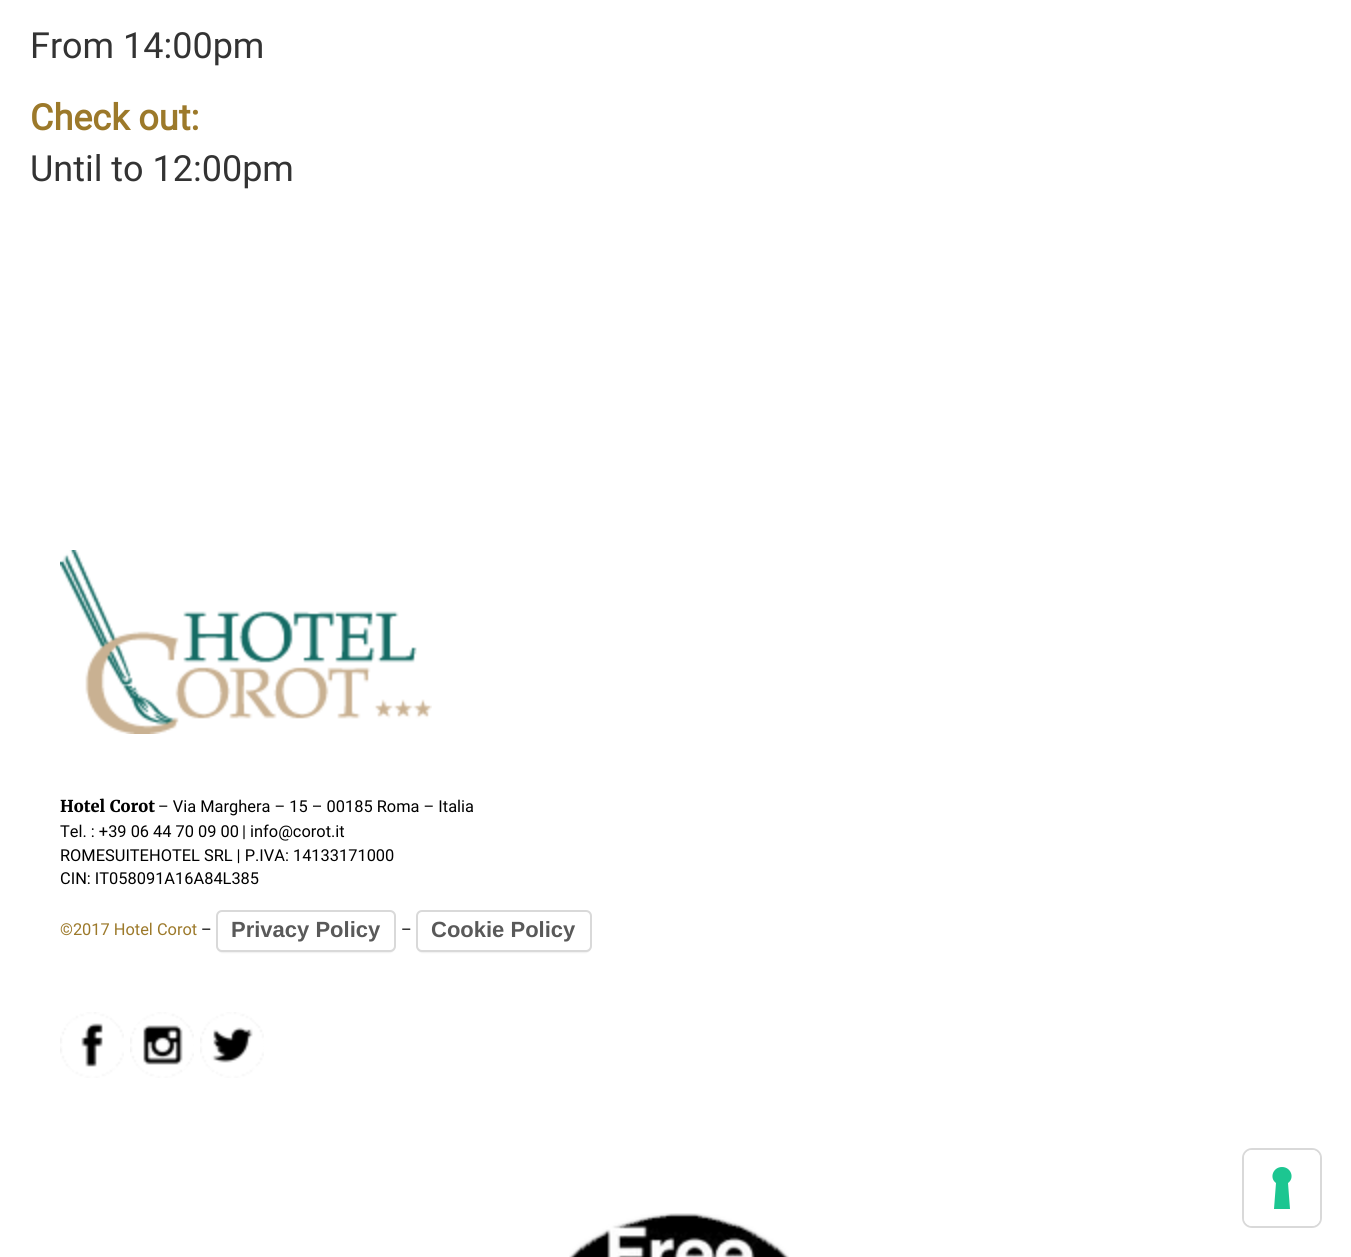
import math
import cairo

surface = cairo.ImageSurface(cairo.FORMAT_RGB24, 1351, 1257)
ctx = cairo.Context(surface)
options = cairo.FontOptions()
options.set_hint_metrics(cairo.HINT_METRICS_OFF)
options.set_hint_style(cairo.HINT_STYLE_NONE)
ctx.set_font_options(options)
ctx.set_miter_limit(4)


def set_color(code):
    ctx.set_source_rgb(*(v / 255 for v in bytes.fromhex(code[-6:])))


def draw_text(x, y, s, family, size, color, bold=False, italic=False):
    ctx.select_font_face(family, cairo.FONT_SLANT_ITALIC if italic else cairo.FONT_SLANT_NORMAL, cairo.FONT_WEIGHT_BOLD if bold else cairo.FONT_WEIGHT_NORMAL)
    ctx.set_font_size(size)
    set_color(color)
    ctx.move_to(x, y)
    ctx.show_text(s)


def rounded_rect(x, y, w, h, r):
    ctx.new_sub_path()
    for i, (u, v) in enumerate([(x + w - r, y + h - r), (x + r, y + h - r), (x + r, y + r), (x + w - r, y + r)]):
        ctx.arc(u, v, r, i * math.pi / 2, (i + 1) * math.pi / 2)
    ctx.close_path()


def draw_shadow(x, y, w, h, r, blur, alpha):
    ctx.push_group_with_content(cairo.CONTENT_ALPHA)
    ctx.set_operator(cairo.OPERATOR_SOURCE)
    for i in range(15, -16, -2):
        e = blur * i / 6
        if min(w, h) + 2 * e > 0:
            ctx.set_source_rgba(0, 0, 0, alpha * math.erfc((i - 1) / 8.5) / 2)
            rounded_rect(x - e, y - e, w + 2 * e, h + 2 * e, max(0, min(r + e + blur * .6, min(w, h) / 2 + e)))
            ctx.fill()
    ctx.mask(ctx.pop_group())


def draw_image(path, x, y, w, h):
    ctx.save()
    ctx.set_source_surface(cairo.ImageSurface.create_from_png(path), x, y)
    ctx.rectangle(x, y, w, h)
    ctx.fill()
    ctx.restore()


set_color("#ffffff")
ctx.paint()
draw_text(30, 58, "From 14:00pm", "Roboto", 36, "#333333")
draw_text(30, 130, "Check out:", "Roboto", 36, "#9c792a", bold=True)
draw_text(30, 181, "Until to 12:00pm", "Roboto", 36, "#333333")
draw_image("assets/img1.png", 60, 550, 372, 184)
draw_text(60, 812, "Hotel Corot", "Merriweather", 16.4, "#000000", bold=True)
draw_text(158, 812, "– Via Marghera – 15 – 00185 Roma – Italia", "Roboto", 16.4, "#000000")
draw_text(60, 837, "Tel. : +39 06 44 70 09 00", "Roboto", 16.4, "#000000")
draw_text(242, 837, "| info@corot.it", "Roboto", 16.4, "#000000")
draw_text(60, 861, "ROMESUITEHOTEL SRL | P.IVA: 14133171000", "Roboto", 16.4, "#000000")
draw_text(60, 884, "CIN: IT058091A16A84L385", "Roboto", 16.4, "#000000")
draw_text(60, 935, "©2017 Hotel Corot", "Roboto", 16.4, "#9c792a")
draw_text(201, 935, "–", "Roboto", 16.4, "#000000")
set_color("#000000")
draw_shadow(218, 914, 176, 38, 4, 1, 0.15)
set_color("#ffffff")
rounded_rect(217, 911, 178, 40, 5)
ctx.fill_preserve()
set_color("#d9d9d9")
ctx.stroke()
draw_text(231, 937, "Privacy Policy", "Liberation Sans", 22, "#595959", bold=True)
draw_text(401, 935, "–", "Roboto", 16.4, "#000000")
set_color("#000000")
draw_shadow(418, 914, 172, 38, 4, 1, 0.15)
set_color("#ffffff")
rounded_rect(417, 911, 174, 40, 5)
ctx.fill_preserve()
set_color("#d9d9d9")
ctx.stroke()
draw_text(431, 937, "Cookie Policy", "Liberation Sans", 22, "#595959", bold=True)
draw_image("assets/img2.png", 60, 1012, 64, 66)
draw_image("assets/img3.png", 130, 1012, 64, 66)
draw_image("assets/img4.png", 200, 1012, 64, 66)
draw_image("assets/img5.png", 569, 1213, 220, 44)
rounded_rect(1243, 1149, 78, 78, 9)
set_color("#d9d9d9")
ctx.stroke()
set_color("#ffffff")
rounded_rect(1244, 1150, 76, 76, 8)
ctx.fill()
set_color("#1cc691")
ctx.set_fill_rule(cairo.FILL_RULE_EVEN_ODD)
ctx.new_path()
ctx.move_to(1282, 1167)
ctx.curve_to(1291, 1167, 1295, 1178, 1288, 1183)
ctx.line_to(1290, 1209)
ctx.line_to(1274, 1209)
ctx.line_to(1276, 1183)
ctx.curve_to(1269, 1178, 1273, 1167, 1282, 1167)
ctx.close_path()
ctx.fill()
surface.write_to_png("output.png")
